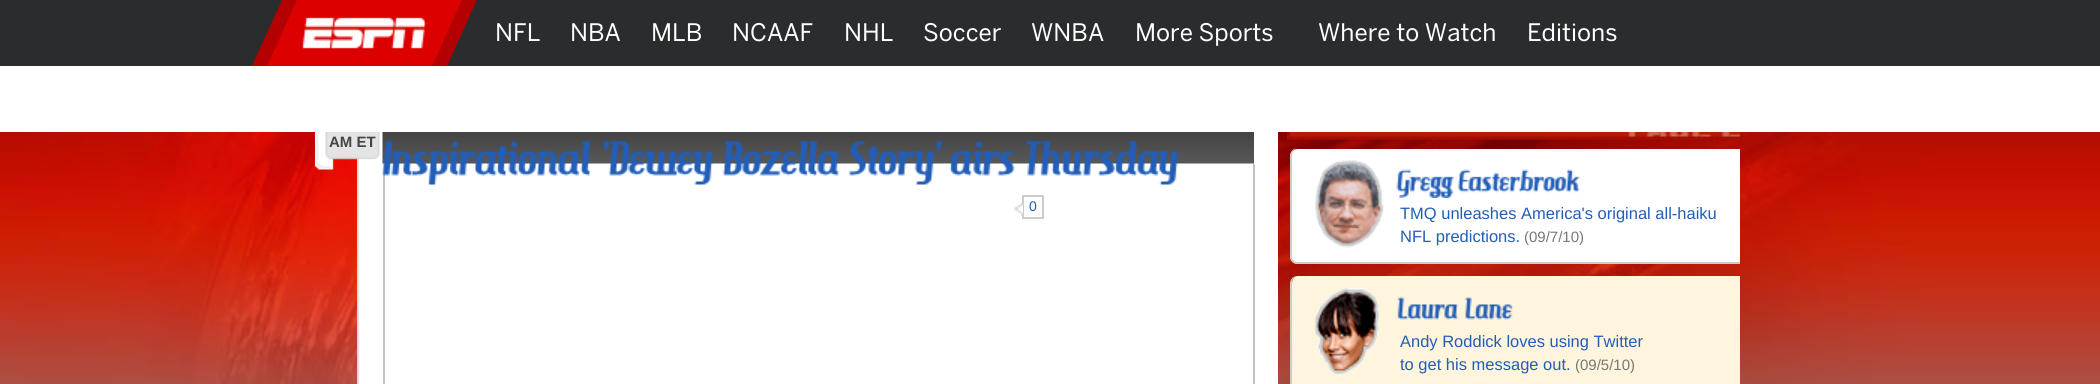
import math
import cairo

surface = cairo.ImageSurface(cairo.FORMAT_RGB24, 2100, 384)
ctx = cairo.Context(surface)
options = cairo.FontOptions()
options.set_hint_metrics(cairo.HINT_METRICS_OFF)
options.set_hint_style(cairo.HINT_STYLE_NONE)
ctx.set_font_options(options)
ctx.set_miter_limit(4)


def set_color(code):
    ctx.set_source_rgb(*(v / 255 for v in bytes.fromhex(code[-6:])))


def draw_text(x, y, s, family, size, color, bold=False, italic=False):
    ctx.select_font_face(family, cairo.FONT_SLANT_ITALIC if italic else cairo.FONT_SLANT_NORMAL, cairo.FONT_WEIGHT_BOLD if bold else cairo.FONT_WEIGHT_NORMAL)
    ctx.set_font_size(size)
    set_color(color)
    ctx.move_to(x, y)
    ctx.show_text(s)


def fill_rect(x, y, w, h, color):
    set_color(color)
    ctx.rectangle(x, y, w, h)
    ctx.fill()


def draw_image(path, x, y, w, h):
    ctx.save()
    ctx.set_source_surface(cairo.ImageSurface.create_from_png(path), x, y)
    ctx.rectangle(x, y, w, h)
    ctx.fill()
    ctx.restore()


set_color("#ffffff")
ctx.paint()
draw_image("assets/img1.png", 0, 132, 2100, 252)
fill_rect(0, 0, 2100, 66, "#2b2c2d")
set_color("#b40000")
ctx.new_path()
ctx.move_to(282, 0)
ctx.line_to(477, 0)
ctx.line_to(447, 66)
ctx.line_to(252, 66)
ctx.close_path()
ctx.fill()
set_color("#dd0000")
ctx.new_path()
ctx.move_to(297, 0)
ctx.line_to(462, 0)
ctx.line_to(432, 66)
ctx.line_to(267, 66)
ctx.close_path()
ctx.fill()
draw_image("assets/img2.png", 302, 17, 125, 32)
draw_text(495, 41, "NFL", "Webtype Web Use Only", 24, "#ffffff")
draw_text(570, 41, "NBA", "Webtype Web Use Only", 24, "#ffffff")
draw_text(651, 41, "MLB", "Webtype Web Use Only", 24, "#ffffff")
draw_text(732, 41, "NCAAF", "Webtype Web Use Only", 24, "#ffffff")
draw_text(844, 41, "NHL", "Webtype Web Use Only", 24, "#ffffff")
draw_text(923, 41, "Soccer", "Webtype Web Use Only", 24, "#ffffff")
draw_text(1031, 41, "WNBA", "Webtype Web Use Only", 24, "#ffffff")
draw_text(1135, 41, "More Sports", "Webtype Web Use Only", 24, "#ffffff")
draw_text(1318, 41, "Where to Watch", "Webtype Web Use Only", 24, "#ffffff")
draw_text(1527, 41, "Editions", "Webtype Web Use Only", 24, "#ffffff")
fill_rect(359, 132, 919, 252, "#ffffff")
fill_rect(357, 158, 2, 226, "#dddddd")
draw_image("assets/img3.png", 382, 132, 872, 32)
draw_image("assets/img4.png", 315, 132, 66, 38)
draw_text(329, 147, "AM ET", "Liberation Sans", 15, "#444444", bold=True)
fill_rect(383, 164, 2, 220, "#c2c2c2")
draw_image("assets/img5.png", 382, 140, 210, 45)
draw_image("assets/img6.png", 602, 140, 111, 45)
draw_image("assets/img7.png", 722, 140, 117, 36)
draw_image("assets/img8.png", 848, 140, 95, 45)
draw_image("assets/img9.png", 949, 140, 66, 36)
draw_image("assets/img10.png", 1025, 140, 153, 45)
ctx.rectangle(1023, 196, 20, 22)
set_color("#cccccc")
ctx.stroke()
draw_image("assets/img11.png", 1014, 202, 9, 14)
draw_text(1029, 211, "0", "Liberation Sans", 14, "#225db7")
fill_rect(1253, 164, 2, 220, "#c2c2c2")
draw_image("assets/img12.png", 1287, 132, 456, 8)
set_color("#ffffff")
ctx.new_path()
ctx.move_to(1298, 149)
ctx.line_to(1740, 149)
ctx.line_to(1740, 264)
ctx.line_to(1298, 264)
ctx.curve_to(1293.5, 264, 1290, 260.5, 1290, 256)
ctx.line_to(1290, 157)
ctx.curve_to(1290, 152.5, 1293.5, 149, 1298, 149)
ctx.close_path()
ctx.fill()
set_color("#cccccc")
ctx.set_fill_rule(cairo.FILL_RULE_EVEN_ODD)
ctx.new_path()
ctx.move_to(1298, 148)
ctx.line_to(1740, 148)
ctx.line_to(1740, 264)
ctx.line_to(1298, 264)
ctx.curve_to(1293, 264, 1290, 261, 1290, 256)
ctx.line_to(1290, 156)
ctx.curve_to(1290, 152, 1293, 148, 1298, 148)
ctx.close_path()
ctx.move_to(1298, 148)
ctx.line_to(1740, 148)
ctx.line_to(1740, 262)
ctx.line_to(1298, 262)
ctx.curve_to(1294, 262, 1292, 260, 1292, 256)
ctx.line_to(1292, 156)
ctx.curve_to(1292, 152, 1294, 148, 1298, 148)
ctx.close_path()
ctx.fill()
draw_image("assets/img13.png", 1315, 160, 69, 88)
draw_image("assets/img14.png", 1396, 169, 58, 29)
draw_image("assets/img15.png", 1457, 169, 123, 24)
draw_text(1400, 219, "TMQ unleashes America's original all-haiku", "Liberation Sans", 16.5, "#225db7")
draw_text(1400, 242, "NFL predictions.", "Liberation Sans", 16.5, "#225db7")
draw_text(1524, 242, "(09/7/10)", "Liberation Sans", 15, "#777777")
set_color("#fef5dc")
ctx.set_fill_rule(cairo.FILL_RULE_WINDING)
ctx.new_path()
ctx.move_to(1298, 276)
ctx.line_to(1740, 276)
ctx.line_to(1740, 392)
ctx.line_to(1298, 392)
ctx.curve_to(1294, 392, 1292, 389, 1292, 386)
ctx.line_to(1292, 284)
ctx.curve_to(1292, 279, 1294, 276, 1298, 276)
ctx.close_path()
ctx.fill()
set_color("#cccccc")
ctx.set_fill_rule(cairo.FILL_RULE_EVEN_ODD)
ctx.new_path()
ctx.move_to(1298, 276)
ctx.line_to(1740, 276)
ctx.line_to(1740, 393)
ctx.line_to(1298, 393)
ctx.curve_to(1293, 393, 1290, 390, 1290, 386)
ctx.line_to(1290, 284)
ctx.curve_to(1290, 279, 1293, 276, 1298, 276)
ctx.close_path()
ctx.move_to(1298, 276)
ctx.line_to(1740, 276)
ctx.line_to(1740, 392)
ctx.line_to(1298, 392)
ctx.curve_to(1294, 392, 1292, 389, 1292, 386)
ctx.line_to(1292, 284)
ctx.curve_to(1292, 279, 1294, 276, 1298, 276)
ctx.close_path()
ctx.fill()
draw_image("assets/img16.png", 1315, 287, 64, 87)
draw_image("assets/img17.png", 1397, 297, 62, 23)
draw_image("assets/img18.png", 1465, 297, 48, 23)
draw_text(1400, 347, "Andy Roddick loves using Twitter", "Liberation Sans", 16.5, "#225db7")
draw_text(1400, 370, "to get his message out.", "Liberation Sans", 16.5, "#225db7")
draw_text(1575, 370, "(09/5/10)", "Liberation Sans", 15, "#777777")
surface.write_to_png("output.png")
